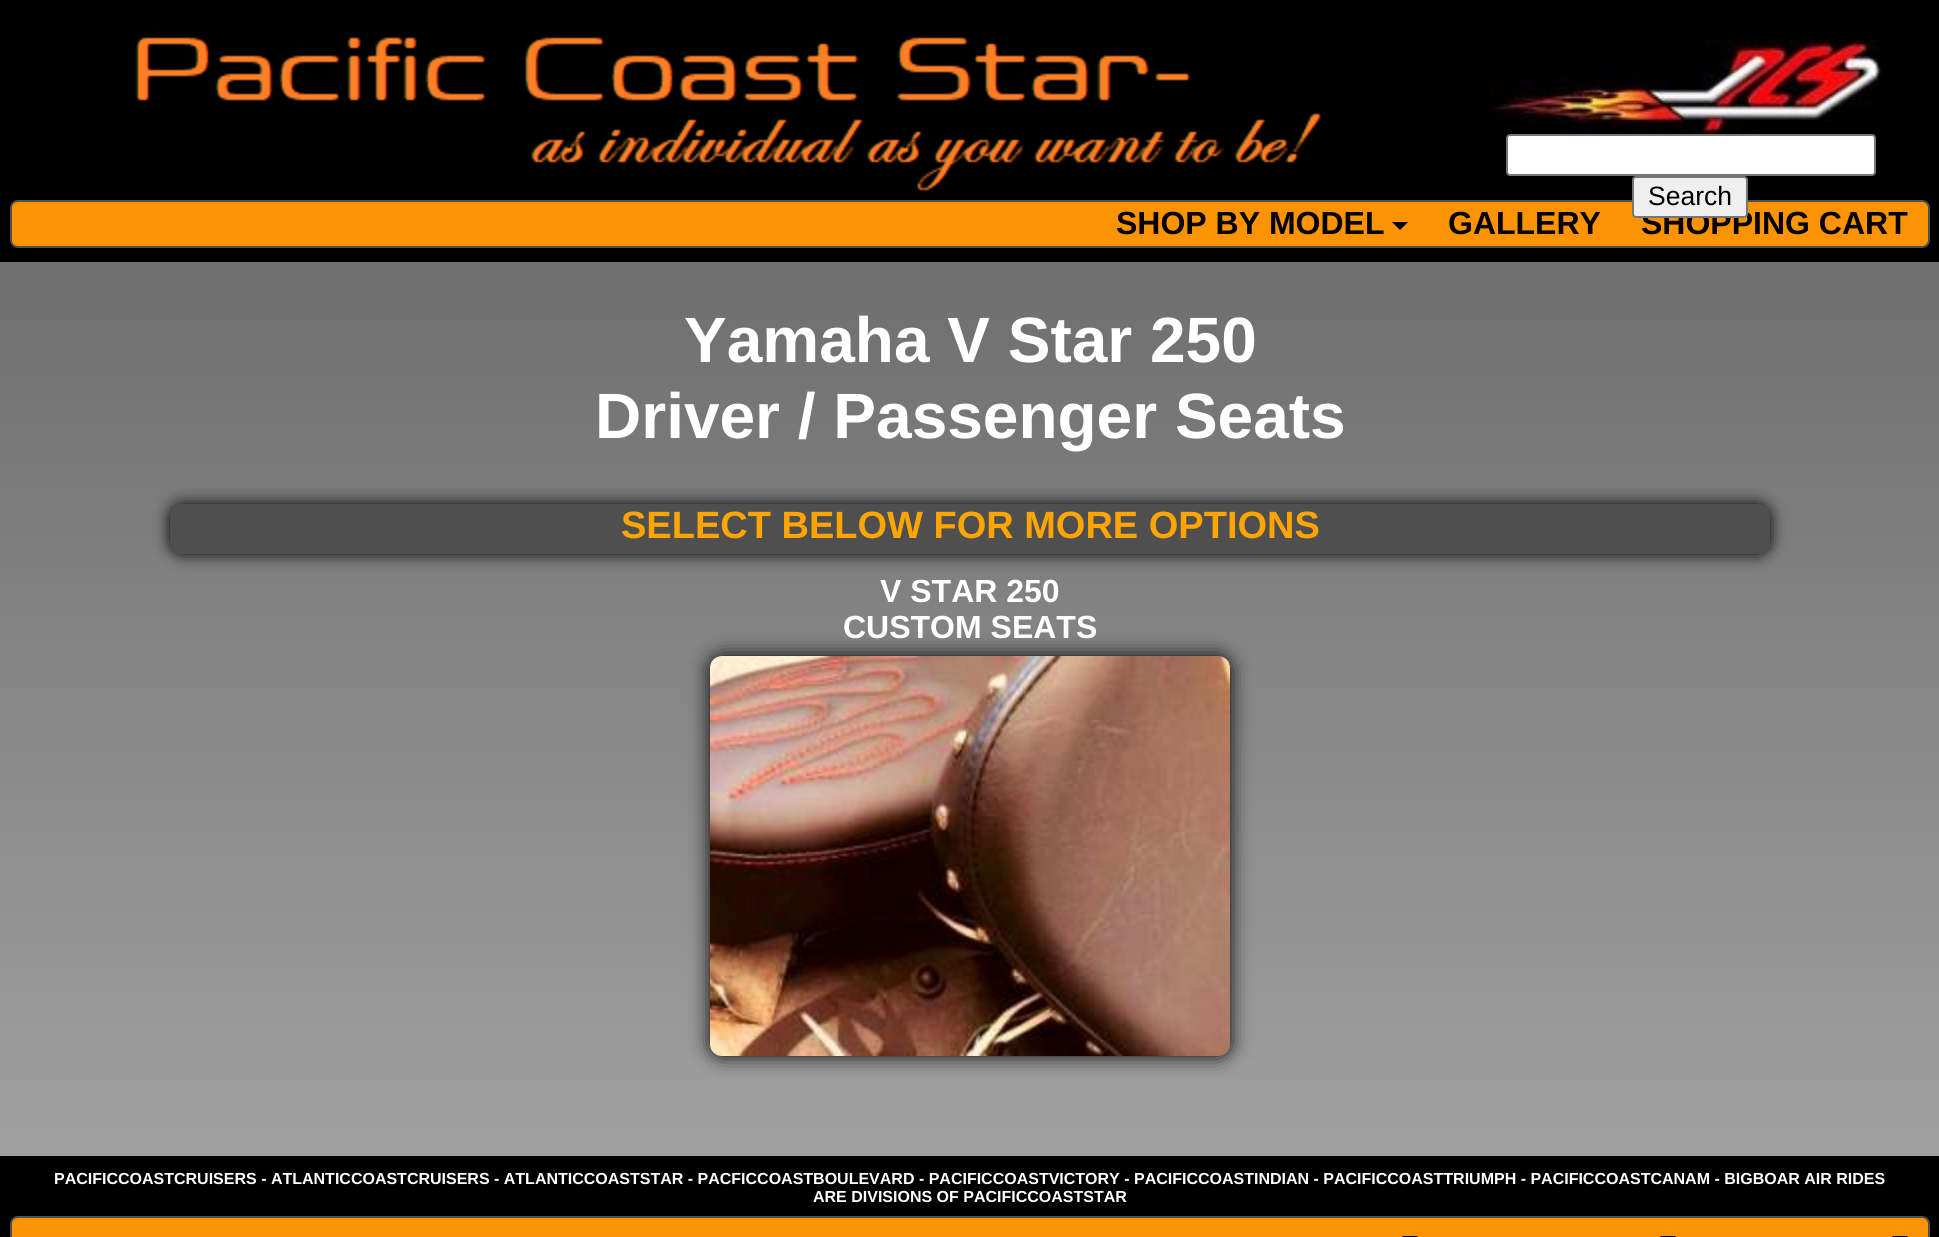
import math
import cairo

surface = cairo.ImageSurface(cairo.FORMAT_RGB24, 1939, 1237)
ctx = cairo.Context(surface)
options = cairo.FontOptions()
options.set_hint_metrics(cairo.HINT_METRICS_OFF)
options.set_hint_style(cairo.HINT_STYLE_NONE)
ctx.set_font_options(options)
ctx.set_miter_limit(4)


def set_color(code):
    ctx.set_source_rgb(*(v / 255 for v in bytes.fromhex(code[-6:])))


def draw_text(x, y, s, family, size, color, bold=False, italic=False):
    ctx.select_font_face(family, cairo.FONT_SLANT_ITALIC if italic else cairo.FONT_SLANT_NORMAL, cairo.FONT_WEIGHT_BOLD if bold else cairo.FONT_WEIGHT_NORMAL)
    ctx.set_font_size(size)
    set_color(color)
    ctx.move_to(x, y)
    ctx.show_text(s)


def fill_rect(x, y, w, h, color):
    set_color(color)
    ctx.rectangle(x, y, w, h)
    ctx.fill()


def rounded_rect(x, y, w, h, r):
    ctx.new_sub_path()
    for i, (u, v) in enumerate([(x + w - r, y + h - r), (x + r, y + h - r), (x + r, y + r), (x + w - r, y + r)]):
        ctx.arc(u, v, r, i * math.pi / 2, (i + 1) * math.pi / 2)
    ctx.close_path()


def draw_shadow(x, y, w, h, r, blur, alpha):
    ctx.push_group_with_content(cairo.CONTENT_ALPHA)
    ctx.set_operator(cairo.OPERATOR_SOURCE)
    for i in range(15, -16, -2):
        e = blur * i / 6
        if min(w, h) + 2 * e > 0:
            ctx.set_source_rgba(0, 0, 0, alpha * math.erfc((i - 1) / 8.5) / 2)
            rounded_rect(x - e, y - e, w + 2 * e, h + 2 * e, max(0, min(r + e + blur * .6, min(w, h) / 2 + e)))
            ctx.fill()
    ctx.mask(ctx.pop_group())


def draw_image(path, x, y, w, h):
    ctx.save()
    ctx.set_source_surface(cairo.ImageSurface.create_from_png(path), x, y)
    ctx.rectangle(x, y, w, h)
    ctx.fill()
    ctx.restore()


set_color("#ffffff")
ctx.paint()
draw_image("assets/img1.png", 0, 262, 1939, 894)
fill_rect(0, 0, 1939, 262, "#000000")
draw_image("assets/img2.png", 135, 37, 1186, 154)
draw_image("assets/img3.png", 1490, 40, 393, 94)
set_color("#ffffff")
rounded_rect(1507, 135, 368, 40, 3)
ctx.fill_preserve()
set_color("#767676")
ctx.stroke()
set_color("#fc9303")
rounded_rect(11, 201, 1918, 46, 7)
ctx.fill_preserve()
set_color("#4f4f4f")
ctx.stroke()
draw_text(1641, 234, "SHOPPING CART", "Liberation Sans", 32, "#000000", bold=True)
set_color("#efefef")
rounded_rect(1633, 177, 114, 40, 3)
ctx.fill_preserve()
set_color("#767676")
ctx.stroke()
draw_text(1648, 205, "Search", "Liberation Sans", 26.5, "#000000")
draw_text(1116, 234, "SHOP BY MODEL", "Liberation Sans", 32, "#000000", bold=True)
ctx.new_path()
ctx.move_to(1392, 222)
ctx.line_to(1408, 222)
ctx.line_to(1400, 230)
ctx.close_path()
ctx.fill()
draw_text(1448, 234, "GALLERY", "Liberation Sans", 32, "#000000", bold=True)
draw_text(684, 362, "Yamaha V Star 250", "Liberation Sans", 64, "#ffffff", bold=True)
draw_text(595, 438, "Driver / Passenger Seats", "Liberation Sans", 64, "#ffffff", bold=True)
set_color("#000000")
draw_shadow(170, 504, 1600, 50, 12, 8, 1)
set_color("#4f4f4f")
rounded_rect(170, 504, 1600, 50, 12)
ctx.fill()
draw_text(621, 538, "SELECT BELOW FOR MORE OPTIONS", "Liberation Sans", 38, "#ffa500", bold=True)
draw_text(880, 602, "V STAR 250", "Liberation Sans", 32, "#ffffff", bold=True)
draw_text(843, 638, "CUSTOM SEATS", "Liberation Sans", 32, "#ffffff", bold=True)
set_color("#000000")
draw_shadow(710, 656, 520, 400, 12, 10, 1)
draw_image("assets/img4.png", 710, 656, 520, 400)
fill_rect(0, 1156, 1939, 81, "#000000")
draw_text(54, 1184, "PACIFICCOASTCRUISERS - ATLANTICCOASTCRUISERS - ATLANTICCOASTSTAR - PACFICCOASTBOULEVARD - PACIFICCOASTVICTORY - PACIFICCOASTINDIAN - PACIFICCOASTTRIUMPH - PACIFICCOASTCANAM - BIGBOAR AIR RIDES", "Liberation Sans", 16, "#ffffff", bold=True)
draw_text(813, 1202, "ARE DIVISIONS OF PACIFICCOASTSTAR", "Liberation Sans", 16, "#ffffff", bold=True)
set_color("#fc9303")
rounded_rect(11, 1217, 1918, 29, 7)
ctx.fill_preserve()
set_color("#4f4f4f")
ctx.stroke()
set_color("#000000")
ctx.new_path()
ctx.move_to(1402, 1236)
ctx.line_to(1418, 1236)
ctx.line_to(1410, 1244)
ctx.close_path()
ctx.fill()
ctx.new_path()
ctx.move_to(1660, 1236)
ctx.line_to(1676, 1236)
ctx.line_to(1668, 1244)
ctx.close_path()
ctx.fill()
ctx.new_path()
ctx.move_to(1892, 1236)
ctx.line_to(1908, 1236)
ctx.line_to(1900, 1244)
ctx.close_path()
ctx.fill()
surface.write_to_png("output.png")
